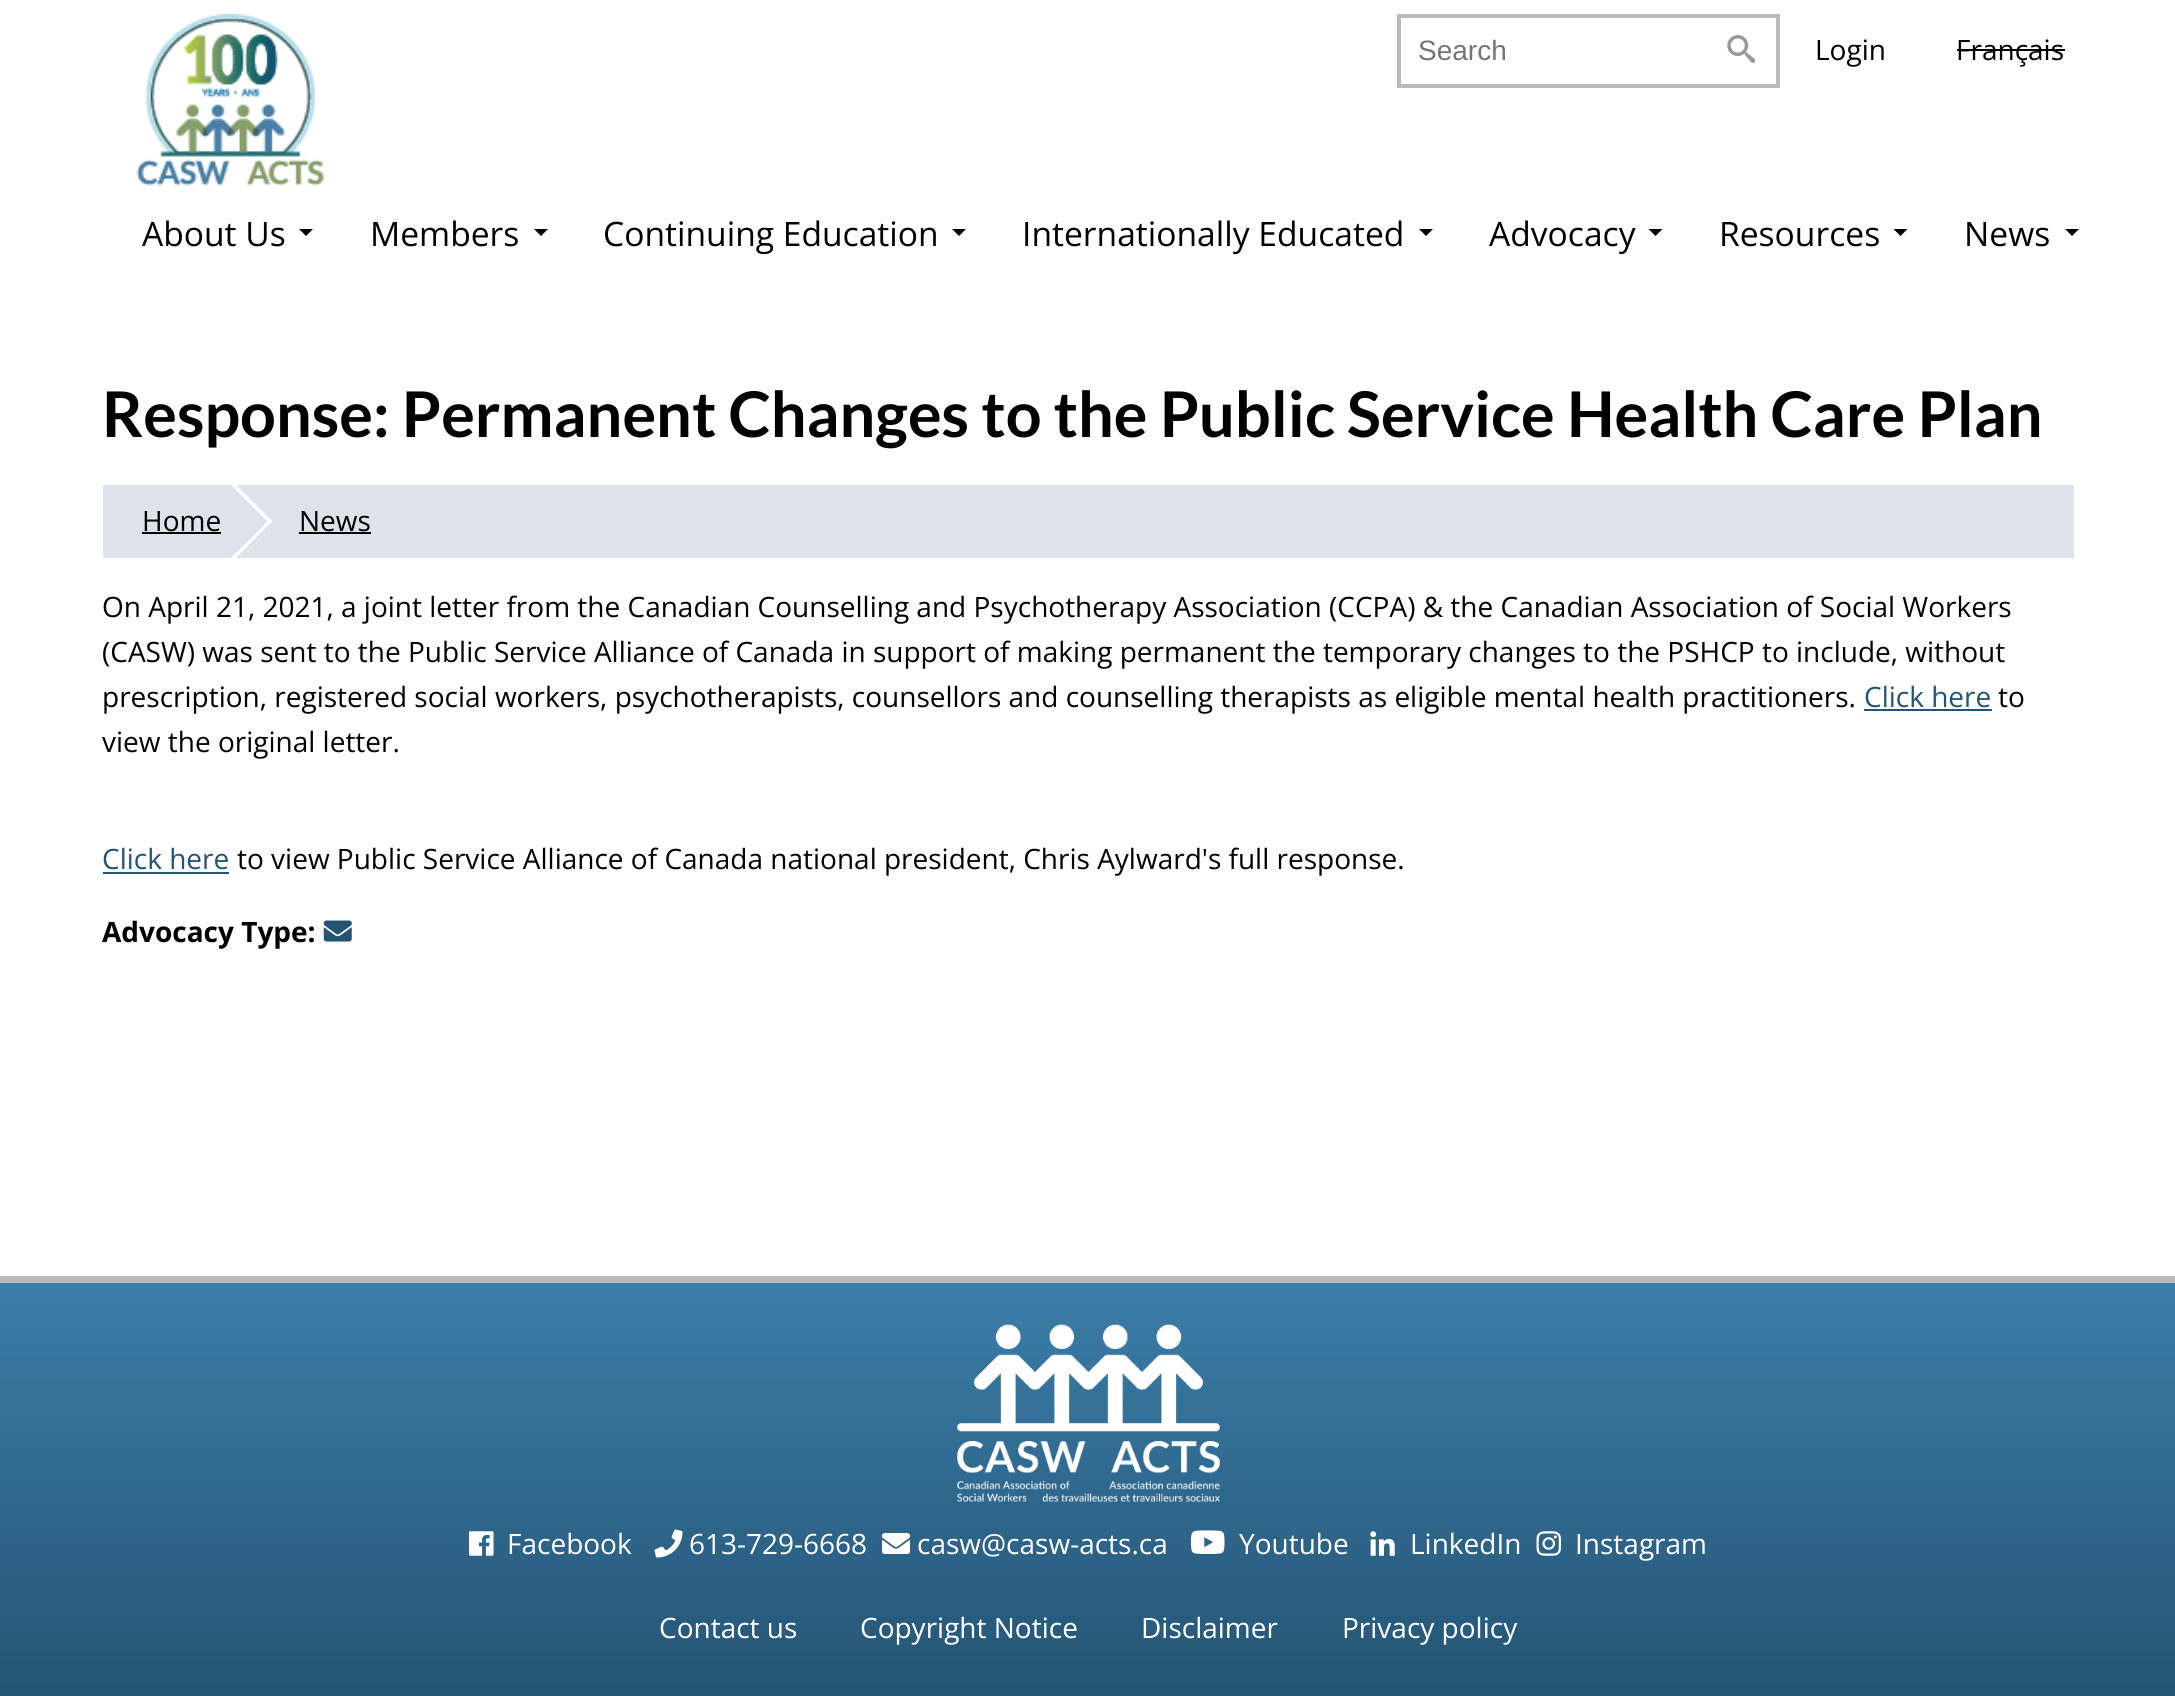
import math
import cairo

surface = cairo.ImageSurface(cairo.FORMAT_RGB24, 2175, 1696)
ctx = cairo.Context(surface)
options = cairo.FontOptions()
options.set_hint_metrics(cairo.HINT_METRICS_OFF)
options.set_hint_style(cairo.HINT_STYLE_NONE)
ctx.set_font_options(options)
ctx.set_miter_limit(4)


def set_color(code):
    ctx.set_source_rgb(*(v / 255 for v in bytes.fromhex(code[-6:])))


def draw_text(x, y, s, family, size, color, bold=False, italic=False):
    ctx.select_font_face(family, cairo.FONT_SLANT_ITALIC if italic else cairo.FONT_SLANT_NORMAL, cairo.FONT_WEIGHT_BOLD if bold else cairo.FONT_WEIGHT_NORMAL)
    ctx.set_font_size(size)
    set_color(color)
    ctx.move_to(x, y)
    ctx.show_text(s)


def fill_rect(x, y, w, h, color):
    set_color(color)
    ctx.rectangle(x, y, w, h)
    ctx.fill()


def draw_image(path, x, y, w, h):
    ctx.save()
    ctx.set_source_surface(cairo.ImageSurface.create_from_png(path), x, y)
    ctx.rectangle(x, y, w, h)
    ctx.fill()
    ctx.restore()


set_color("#ffffff")
ctx.paint()
draw_image("assets/img1.png", 136, 14, 188, 172)
ctx.rectangle(1399, 16, 379, 70)
set_color("#bbbbbb")
ctx.set_line_width(4)
ctx.stroke()
draw_text(1418, 60, "Search", "Liberation Sans", 28, "#757575")
draw_image("assets/img2.png", 1727, 35, 28, 28)
draw_text(1815, 60, "Login", "Open Sans", 28, "#000001")
draw_text(1956, 60, "Français", "Open Sans", 28, "#000001")
fill_rect(1957, 49, 108, 2, "#000000")
draw_text(142, 246, "About Us", "Open Sans", 33.6, "#000001")
set_color("#000000")
ctx.new_path()
ctx.move_to(299, 229)
ctx.line_to(313, 229)
ctx.line_to(306, 236)
ctx.close_path()
ctx.fill()
draw_text(370, 246, "Members", "Open Sans", 33.6, "#000001")
set_color("#000000")
ctx.new_path()
ctx.move_to(534, 229)
ctx.line_to(548, 229)
ctx.line_to(541, 236)
ctx.close_path()
ctx.fill()
draw_text(603, 246, "Continuing Education", "Open Sans", 33.6, "#000001")
set_color("#000000")
ctx.new_path()
ctx.move_to(952, 229)
ctx.line_to(966, 229)
ctx.line_to(959, 236)
ctx.close_path()
ctx.fill()
draw_text(1022, 246, "Internationally Educated", "Open Sans", 33.6, "#000001")
set_color("#000000")
ctx.new_path()
ctx.move_to(1419, 229)
ctx.line_to(1433, 229)
ctx.line_to(1426, 236)
ctx.close_path()
ctx.fill()
draw_text(1489, 246, "Advocacy", "Open Sans", 33.6, "#000001")
set_color("#000000")
ctx.new_path()
ctx.move_to(1648.5, 229)
ctx.line_to(1662.5, 229)
ctx.line_to(1655.5, 236)
ctx.close_path()
ctx.fill()
draw_text(1719, 246, "Resources", "Open Sans", 33.6, "#000001")
set_color("#000000")
ctx.new_path()
ctx.move_to(1893.5, 229)
ctx.line_to(1907.5, 229)
ctx.line_to(1900.5, 236)
ctx.close_path()
ctx.fill()
draw_text(1964, 246, "News", "Open Sans", 33.6, "#000001")
set_color("#000000")
ctx.new_path()
ctx.move_to(2065, 229)
ctx.line_to(2079, 229)
ctx.line_to(2072, 236)
ctx.close_path()
ctx.fill()
draw_text(102, 437, "Response: Permanent Changes to the Public Service Health Care Plan", "Lato", 63, "#000001", bold=True)
fill_rect(103, 485, 1971, 73, "#dee2ea")
draw_text(142, 531, "Home", "Open Sans", 28, "#000001")
fill_rect(142, 532, 79, 2, "#010000")
ctx.save()
ctx.rectangle(103, 485, 1971, 73)
ctx.clip()
set_color("#ffffff")
ctx.new_path()
ctx.move_to(230, 479)
ctx.line_to(272, 521)
ctx.line_to(270, 524)
ctx.line_to(228, 482)
ctx.close_path()
ctx.fill()
ctx.new_path()
ctx.move_to(270, 519)
ctx.line_to(272, 521)
ctx.line_to(230, 564)
ctx.line_to(228, 561)
ctx.close_path()
ctx.fill()
ctx.restore()
draw_text(299, 531, "News", "Open Sans", 28, "#000001")
fill_rect(299, 532, 72, 2, "#010000")
draw_text(102, 617, "On April 21, 2021, a joint letter from the Canadian Counselling and Psychotherapy Association (CCPA) & the Canadian Association of Social Workers", "Open Sans", 28, "#000001")
draw_text(102, 662, "(CASW) was sent to the Public Service Alliance of Canada in support of making permanent the temporary changes to the PSHCP to include, without", "Open Sans", 28, "#000001")
draw_text(102, 707, "prescription, registered social workers, psychotherapists, counsellors and counselling therapists as eligible mental health practitioners.", "Open Sans", 28, "#000001")
draw_text(1864, 707, "Click here", "Open Sans", 28, "#245473")
fill_rect(1864, 709, 128, 2, "#245473")
draw_text(1998, 707, "to", "Open Sans", 28, "#000001")
draw_text(102, 752, "view the original letter.", "Open Sans", 28, "#000001")
draw_text(102, 869, "Click here", "Open Sans", 28, "#245473")
fill_rect(103, 872, 126, 2, "#245473")
draw_text(237, 869, "to view Public Service Alliance of Canada national president, Chris Aylward's full response.", "Open Sans", 28, "#000001")
draw_text(102, 942, "Advocacy Type:", "Open Sans", 28, "#000001", bold=True)
draw_image("assets/img3.png", 323, 920, 29, 22)
gradient = cairo.LinearGradient(1088, 1283, 1088, 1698)
gradient.add_color_stop_rgba(0, 0.231, 0.49, 0.659, 1)
gradient.add_color_stop_rgba(1, 0.141, 0.329, 0.451, 1)
ctx.set_source(gradient)
ctx.rectangle(0, 1283, 2175, 413)
ctx.fill()
fill_rect(0, 1276, 2175, 7, "#bbbbbc")
draw_image("assets/img4.png", 957, 1324, 263, 178)
draw_image("assets/img5.png", 469, 1531, 25, 25)
draw_text(507, 1554, "Facebook", "Open Sans", 28, "#ffffff")
draw_image("assets/img6.png", 654, 1529, 29, 29)
draw_text(689, 1554, "613-729-6668", "Open Sans", 28, "#ffffff")
draw_image("assets/img7.png", 882, 1533, 28, 21)
draw_text(917, 1554, "casw@casw-acts.ca", "Open Sans", 28, "#ffffff")
draw_image("assets/img8.png", 1190, 1530, 35, 24)
draw_text(1239, 1554, "Youtube", "Open Sans", 28, "#ffffff")
draw_image("assets/img9.png", 1370, 1531, 25, 25)
draw_text(1410, 1554, "LinkedIn", "Open Sans", 28, "#ffffff")
draw_image("assets/img10.png", 1536, 1531, 25, 25)
draw_text(1575, 1554, "Instagram", "Open Sans", 28, "#ffffff")
draw_text(659, 1638, "Contact us", "Open Sans", 28, "#ffffff")
draw_text(860, 1638, "Copyright Notice", "Open Sans", 28, "#ffffff")
draw_text(1141, 1638, "Disclaimer", "Open Sans", 28, "#ffffff")
draw_text(1342, 1638, "Privacy policy", "Open Sans", 28, "#ffffff")
surface.write_to_png("output.png")
